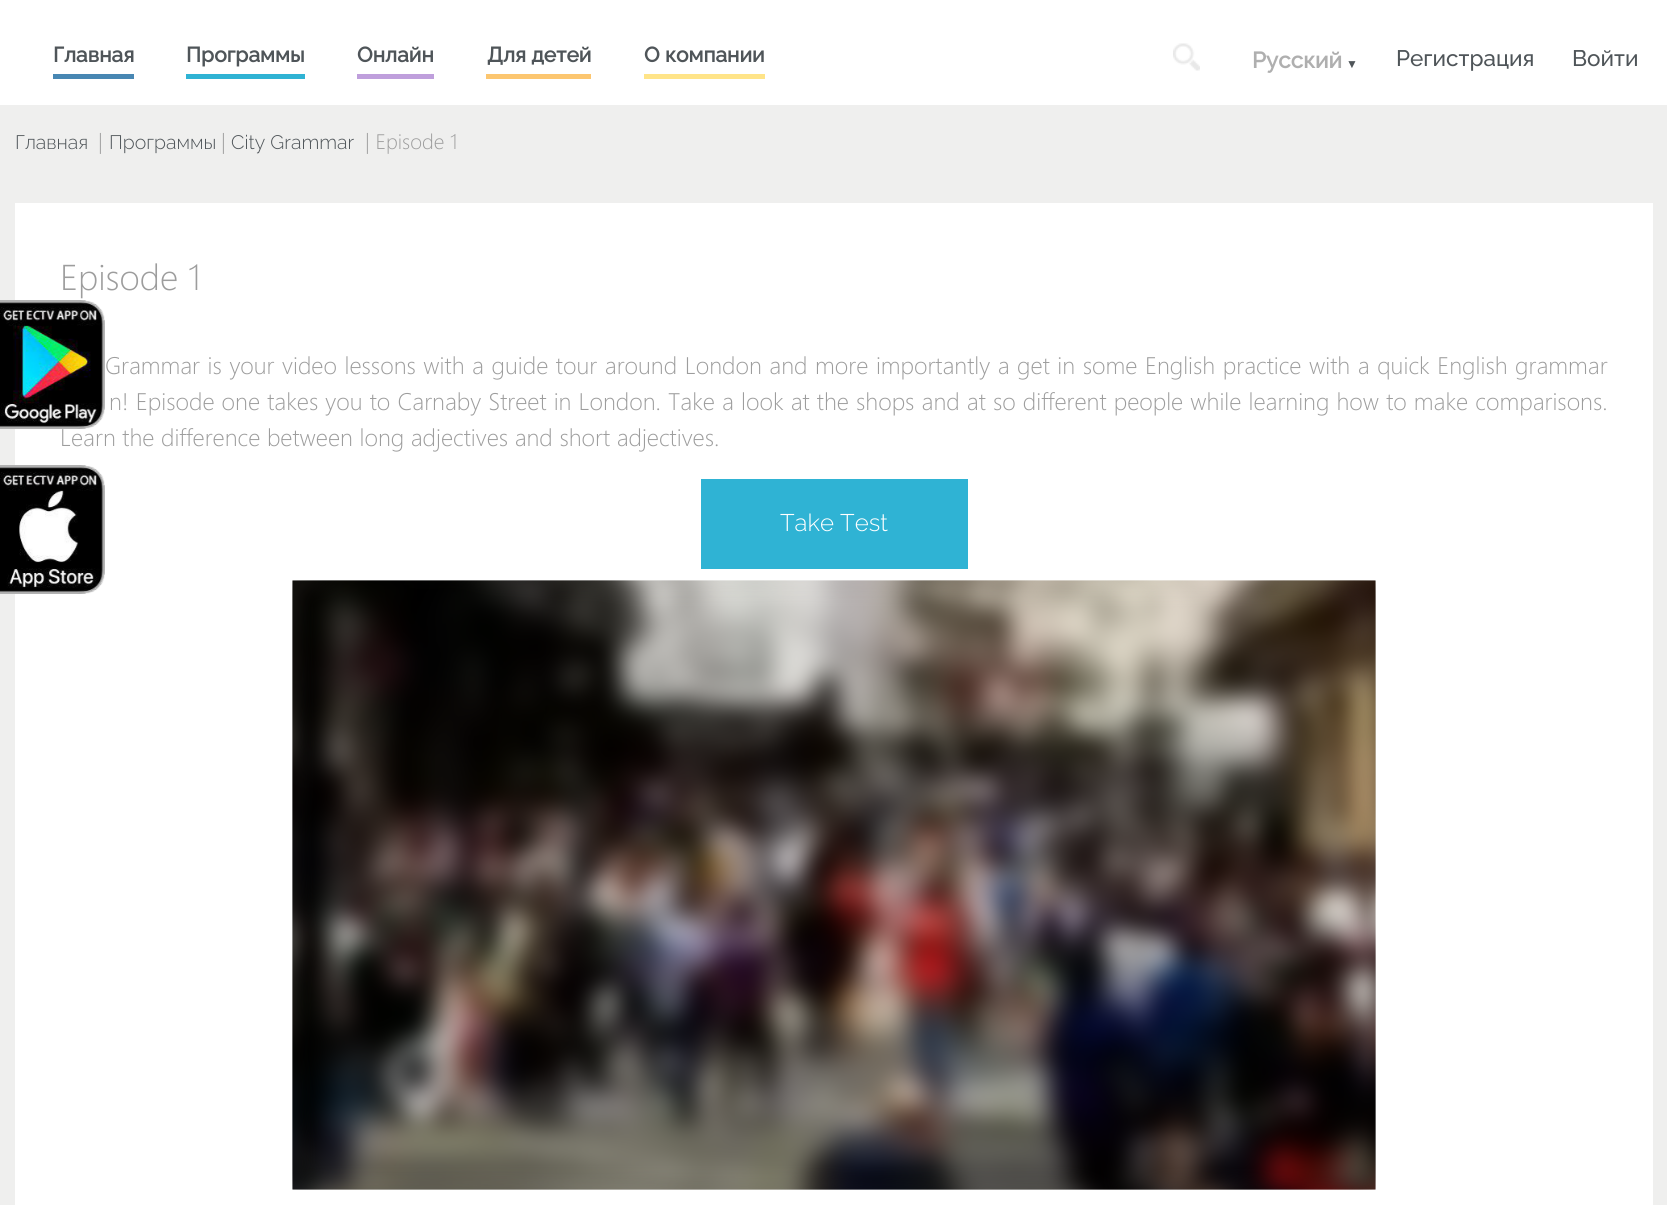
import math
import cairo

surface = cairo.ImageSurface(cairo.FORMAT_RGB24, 1667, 1205)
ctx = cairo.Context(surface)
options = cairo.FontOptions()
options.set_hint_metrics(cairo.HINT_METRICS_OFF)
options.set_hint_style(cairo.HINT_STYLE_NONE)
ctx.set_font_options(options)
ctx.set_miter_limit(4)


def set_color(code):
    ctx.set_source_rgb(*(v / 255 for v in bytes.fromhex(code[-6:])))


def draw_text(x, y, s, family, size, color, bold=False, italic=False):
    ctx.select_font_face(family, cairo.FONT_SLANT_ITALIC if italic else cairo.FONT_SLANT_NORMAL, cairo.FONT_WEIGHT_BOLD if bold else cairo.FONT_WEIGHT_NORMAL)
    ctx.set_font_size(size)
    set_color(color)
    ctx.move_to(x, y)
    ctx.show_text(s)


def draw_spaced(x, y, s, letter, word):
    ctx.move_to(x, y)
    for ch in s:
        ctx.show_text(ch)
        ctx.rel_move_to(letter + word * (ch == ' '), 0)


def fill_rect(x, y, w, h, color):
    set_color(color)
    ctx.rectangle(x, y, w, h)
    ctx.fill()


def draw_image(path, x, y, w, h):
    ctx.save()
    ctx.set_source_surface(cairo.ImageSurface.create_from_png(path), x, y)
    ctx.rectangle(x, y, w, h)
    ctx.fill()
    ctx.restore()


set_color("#efefee")
ctx.paint()
fill_rect(0, 0, 1667, 105, "#ffffff")
draw_text(53, 62, "Главная", "Raleway", 21, "#4f5559", bold=True)
fill_rect(53, 74, 81, 5, "#4887b3")
draw_text(186, 62, "Программы", "Raleway", 21, "#4f5559", bold=True)
fill_rect(186, 74, 119, 5, "#2fb3d4")
draw_text(357, 62, "Онлайн", "Raleway", 21, "#4f5559", bold=True)
fill_rect(357, 74, 77, 5, "#bf9fdc")
draw_text(487, 62, "Для детей", "Raleway", 21, "#4f5559", bold=True)
fill_rect(486, 74, 105, 5, "#fcc670")
draw_text(644, 62, "О компании", "Raleway", 21, "#4f5559", bold=True)
fill_rect(644, 74, 121, 5, "#ffe488")
draw_image("assets/img1.png", 1173, 43, 27, 28)
draw_text(1252, 68, "Русский", "Raleway", 22.5, "#afafaf", bold=True)
draw_text(1346, 68, "▼", "Liberation Serif", 12, "#4f5559")
draw_text(1396, 66, "Регистрация", "Raleway Thin", 22.5, "#4f5559")
draw_text(1572, 66, "Войти", "Raleway Thin", 22.5, "#4f5559")
draw_text(15, 149, "Главная", "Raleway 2 Thin", 19.5, "#4f5559")
draw_text(98, 149, "|", "Segoe UI Light", 21, "#9d9d9d")
draw_text(109, 149, "Программы", "Raleway 2 Thin", 19.5, "#4f5559")
draw_text(221, 149, "|", "Segoe UI Light", 21, "#9d9d9d")
draw_text(231, 149, "City Grammar", "Raleway 2 Thin", 19.5, "#4f5559")
draw_text(365, 149, "| Episode 1", "Segoe UI Light", 21, "#9d9d9d")
fill_rect(15, 203, 1638, 1002, "#ffffff")
draw_text(60, 446, "Learn the difference between long adjectives and short adjectives.", "Segoe UI Light", 24, "#9d9d9d")
draw_image("assets/img2.png", 0, 300, 105, 129)
draw_text(60, 290, "Episode 1", "Segoe UI Light", 36, "#9d9d9d")
ctx.set_font_size(24)
draw_spaced(105, 374, "Grammar is your video lessons with a guide tour around London and more importantly a get in some English practice with a quick English grammar", 0, 1)
draw_spaced(109, 410, "n! Episode one takes you to Carnaby Street in London. Take a look at the shops and at so different people while learning how to make comparisons.", 0, 0.55)
ctx.rectangle(703.5, 481.5, 262, 85)
set_color("#2fb3d4")
ctx.set_line_width(5)
ctx.stroke()
fill_rect(706, 484, 257, 80, "#2fb3d4")
draw_text(780, 531, "Take Test", "Raleway 2 Thin", 24, "#ffffff")
draw_image("assets/img3.png", 292, 580, 1084, 610)
draw_image("assets/img4.png", 0, 465, 105, 129)
surface.write_to_png("output.png")
